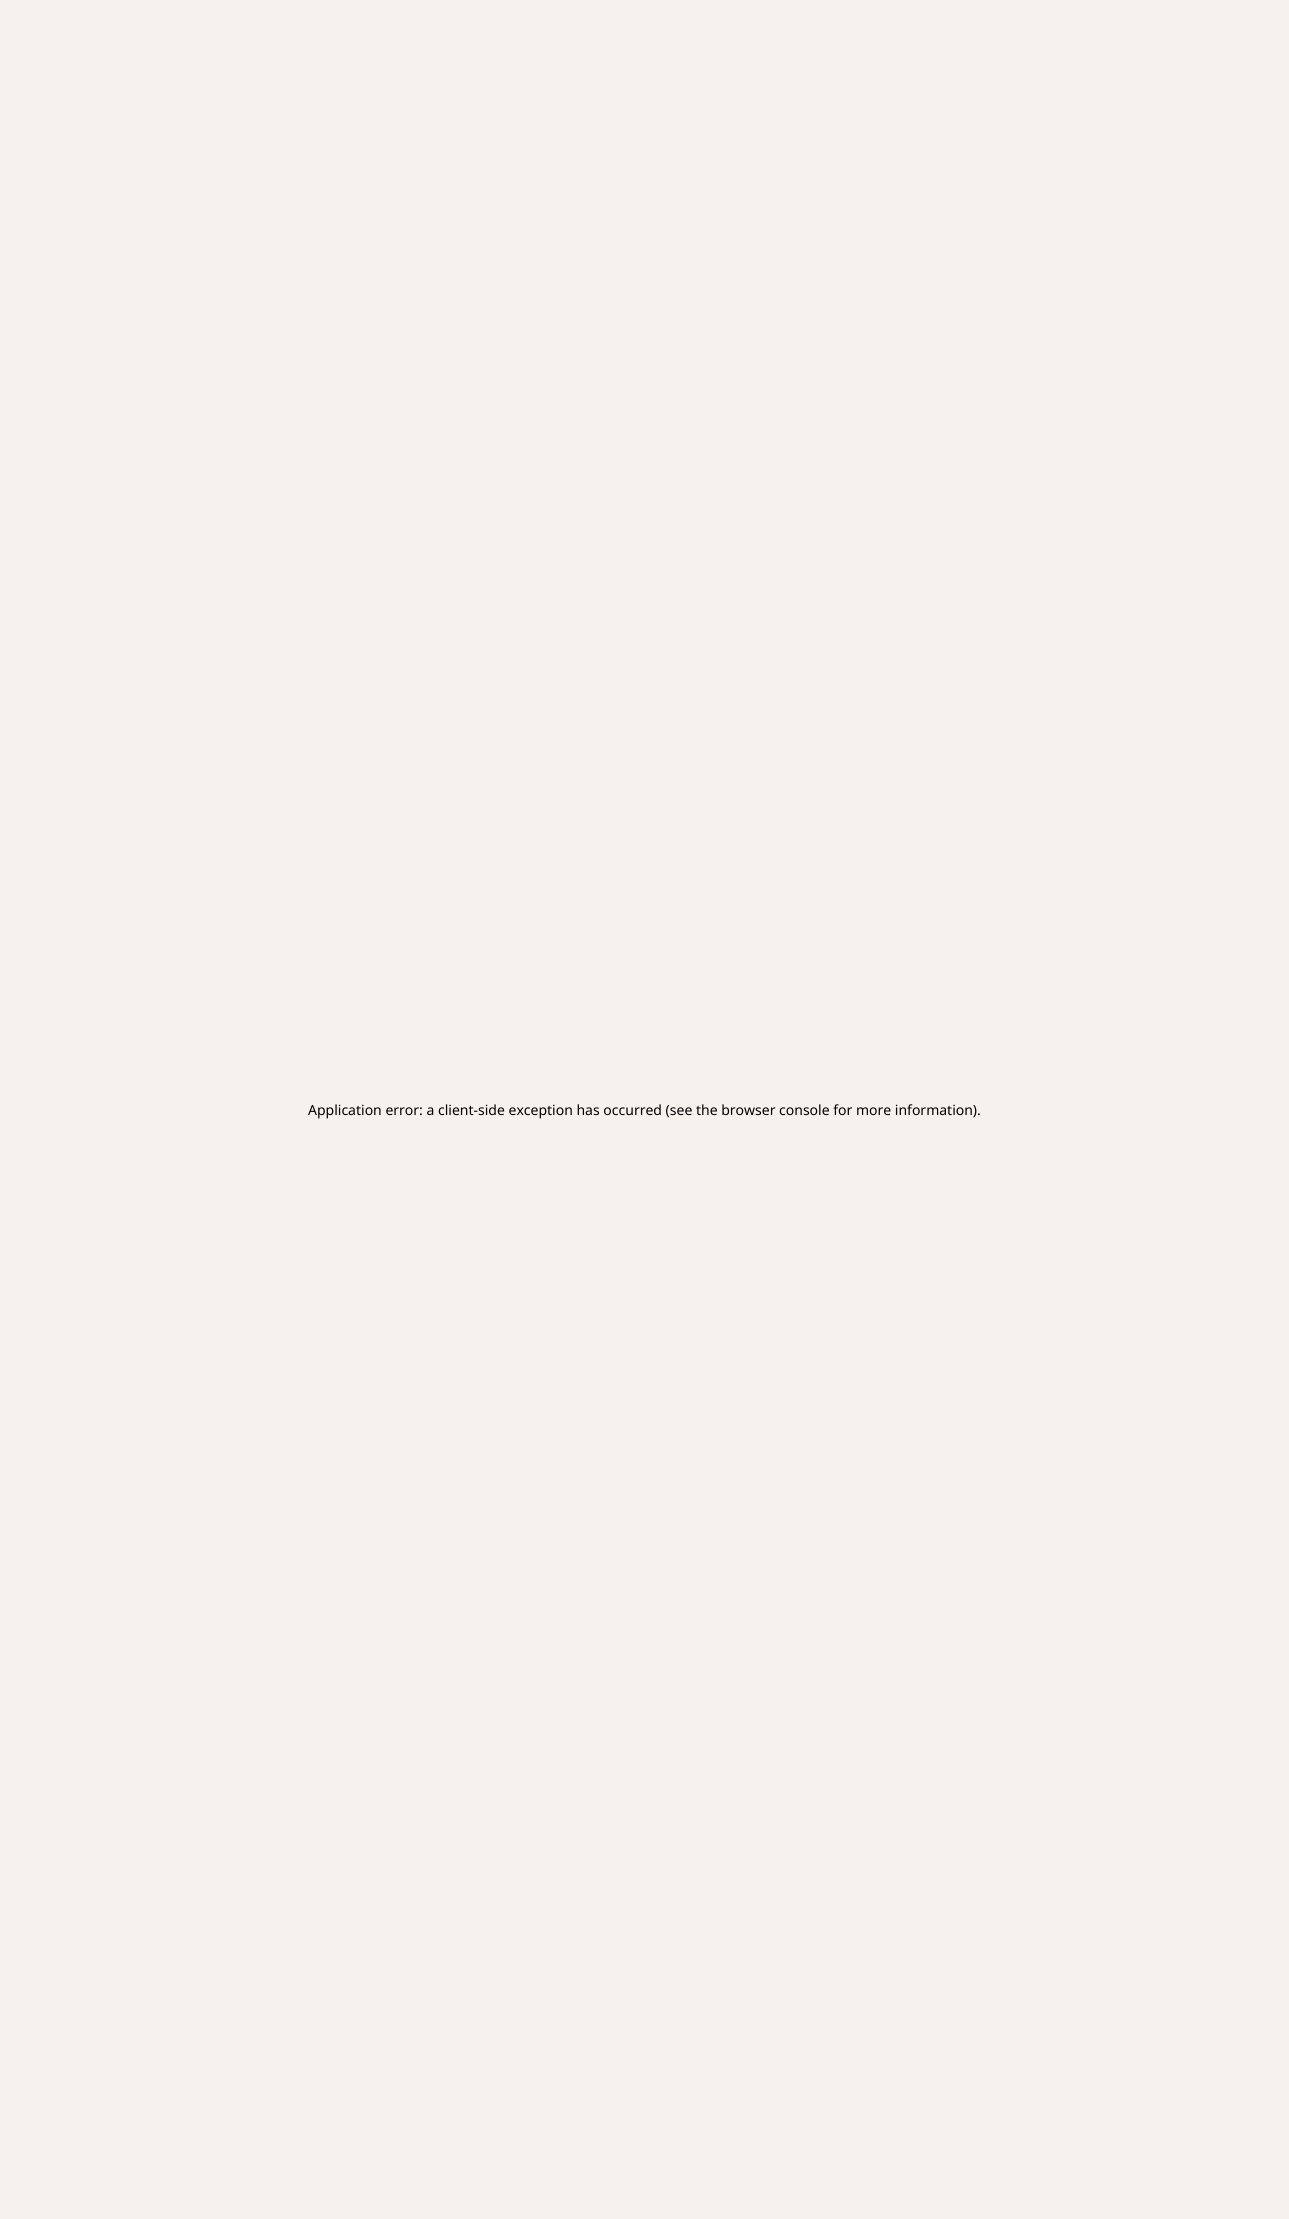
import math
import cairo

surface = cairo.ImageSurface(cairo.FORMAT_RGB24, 1289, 2219)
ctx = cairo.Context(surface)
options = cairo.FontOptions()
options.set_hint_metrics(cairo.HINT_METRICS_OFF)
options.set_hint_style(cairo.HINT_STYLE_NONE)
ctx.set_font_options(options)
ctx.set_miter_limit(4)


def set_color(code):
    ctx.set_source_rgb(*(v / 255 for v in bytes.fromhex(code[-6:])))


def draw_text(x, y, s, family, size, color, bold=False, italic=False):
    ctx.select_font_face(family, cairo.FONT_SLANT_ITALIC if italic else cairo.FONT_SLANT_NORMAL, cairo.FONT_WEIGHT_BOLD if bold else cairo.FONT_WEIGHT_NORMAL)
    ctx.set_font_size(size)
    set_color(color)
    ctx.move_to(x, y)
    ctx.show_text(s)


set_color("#f7f1ed")
ctx.paint()
draw_text(308, 1115, "Application error: a client-side exception has occurred (see the browser console for more information).", "Noto Sans", 14, "#000000")
surface.write_to_png("output.png")
